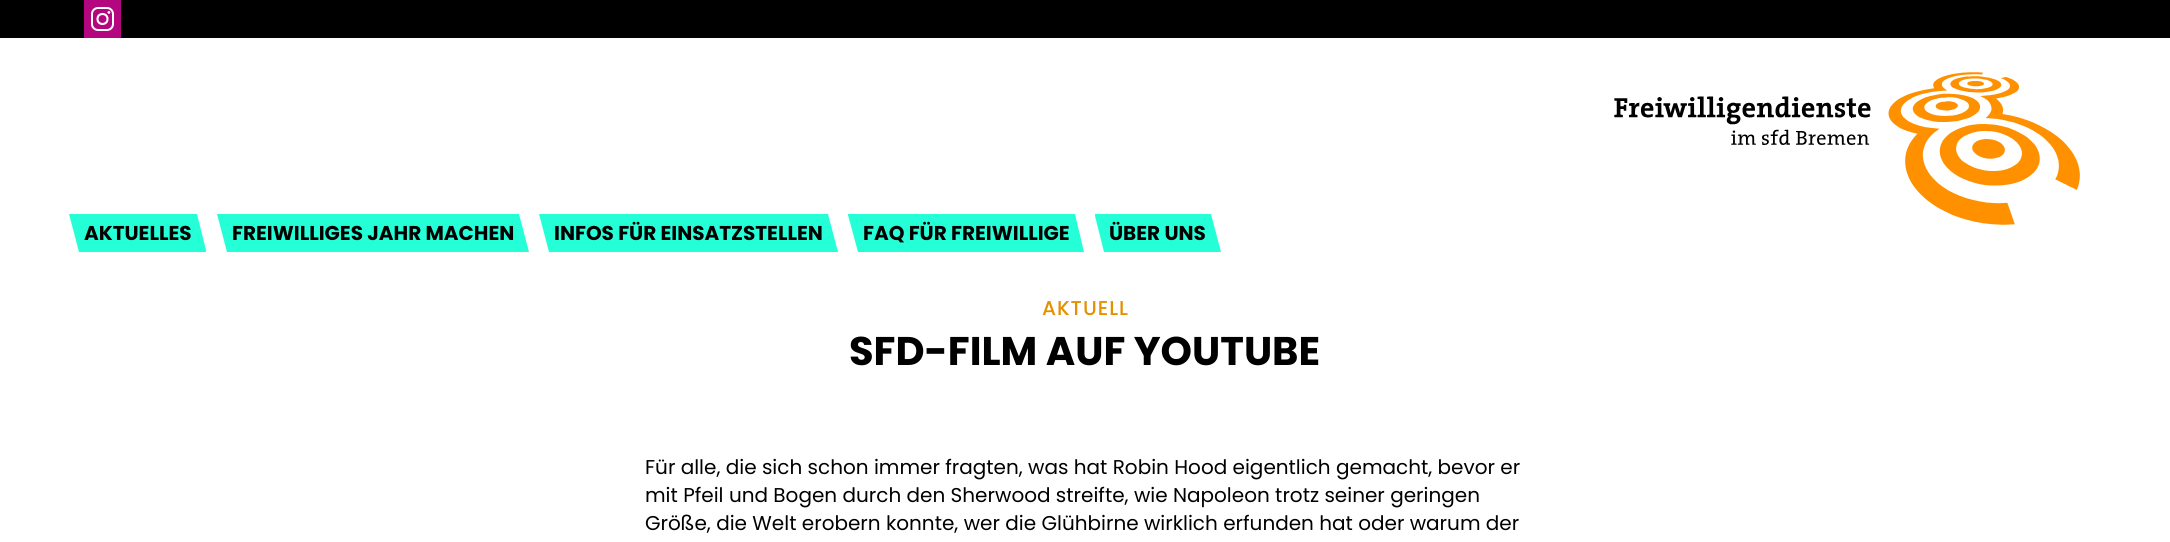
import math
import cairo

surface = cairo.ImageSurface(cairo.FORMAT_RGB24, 2170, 542)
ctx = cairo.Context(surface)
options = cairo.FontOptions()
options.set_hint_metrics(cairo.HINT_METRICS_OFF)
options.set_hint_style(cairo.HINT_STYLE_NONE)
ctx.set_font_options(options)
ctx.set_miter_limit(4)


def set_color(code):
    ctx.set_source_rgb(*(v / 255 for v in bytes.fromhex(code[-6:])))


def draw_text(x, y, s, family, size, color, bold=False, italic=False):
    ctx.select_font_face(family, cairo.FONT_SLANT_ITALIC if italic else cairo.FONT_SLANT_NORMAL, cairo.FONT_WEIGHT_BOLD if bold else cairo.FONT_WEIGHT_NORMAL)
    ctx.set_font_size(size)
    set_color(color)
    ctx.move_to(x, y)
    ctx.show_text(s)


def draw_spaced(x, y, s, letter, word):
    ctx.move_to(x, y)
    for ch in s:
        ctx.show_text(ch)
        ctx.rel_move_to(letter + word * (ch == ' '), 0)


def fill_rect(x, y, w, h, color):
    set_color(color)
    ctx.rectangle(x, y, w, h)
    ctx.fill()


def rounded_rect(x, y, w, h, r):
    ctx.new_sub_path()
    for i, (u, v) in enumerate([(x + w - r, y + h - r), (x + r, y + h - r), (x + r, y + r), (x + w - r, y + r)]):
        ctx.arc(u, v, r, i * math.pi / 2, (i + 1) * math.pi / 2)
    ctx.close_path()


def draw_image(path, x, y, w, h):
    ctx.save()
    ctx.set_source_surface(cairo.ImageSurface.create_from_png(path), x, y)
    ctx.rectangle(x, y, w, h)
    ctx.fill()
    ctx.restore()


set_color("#ffffff")
ctx.paint()
fill_rect(0, 0, 2170, 38, "#000000")
fill_rect(84, 0, 37, 38, "#b4077f")
rounded_rect(92, 8, 21, 22, 6)
set_color("#ffffff")
ctx.stroke()
ctx.arc(102.5, 19, 5, 0, 2 * math.pi)
ctx.set_line_width(2.1)
ctx.stroke()
ctx.arc(108.9, 12.4, 1.4, 0, 2 * math.pi)
ctx.fill()
draw_image("assets/img1.png", 1614, 72, 466, 153)
set_color("#24ffd8")
ctx.new_path()
ctx.move_to(206, 252)
ctx.line_to(79, 252)
ctx.line_to(69, 214)
ctx.line_to(197, 214)
ctx.line_to(206, 250)
ctx.close_path()
ctx.fill()
draw_text(84, 240, "AKTUELLES", "Poppins", 20, "#000000", bold=True)
set_color("#24ffd8")
ctx.new_path()
ctx.move_to(519, 214)
ctx.line_to(529, 252)
ctx.line_to(227, 252)
ctx.line_to(217, 214)
ctx.close_path()
ctx.fill()
draw_text(232, 240, "FREIWILLIGES JAHR MACHEN", "Poppins", 20, "#000000", bold=True)
set_color("#24ffd8")
ctx.new_path()
ctx.move_to(539, 214)
ctx.line_to(828, 214)
ctx.line_to(838, 252)
ctx.line_to(549, 252)
ctx.close_path()
ctx.fill()
draw_text(554, 240, "INFOS FÜR EINSATZSTELLEN", "Poppins", 20, "#000000", bold=True)
set_color("#24ffd8")
ctx.new_path()
ctx.move_to(848, 214)
ctx.line_to(1075, 214)
ctx.line_to(1084, 252)
ctx.line_to(858, 252)
ctx.line_to(848, 215)
ctx.close_path()
ctx.fill()
draw_text(863, 240, "FAQ FÜR FREIWILLIGE", "Poppins", 20, "#000000", bold=True)
set_color("#24ffd8")
ctx.new_path()
ctx.move_to(1095, 214)
ctx.line_to(1211, 214)
ctx.line_to(1221, 252)
ctx.line_to(1104, 252)
ctx.line_to(1095, 216)
ctx.close_path()
ctx.fill()
draw_text(1109, 240, "ÜBER UNS", "Poppins", 20, "#000000", bold=True)
ctx.select_font_face("Poppins Medium")
set_color("#e49000")
draw_spaced(1042, 315, "AKTUELL", 1, 0)
draw_text(849, 365, "SFD-FILM AUF YOUTUBE", "Poppins", 40, "#000000", bold=True)
draw_text(645, 474, "Für alle, die sich schon immer fragten, was hat Robin Hood eigentlich gemacht, bevor er", "Poppins", 20, "#000000")
draw_text(645, 502, "mit Pfeil und Bogen durch den Sherwood streifte, wie Napoleon trotz seiner geringen", "Poppins", 20, "#000000")
draw_text(645, 530, "Größe, die Welt erobern konnte, wer die Glühbirne wirklich erfunden hat oder warum der", "Poppins", 20, "#000000")
surface.write_to_png("output.png")
